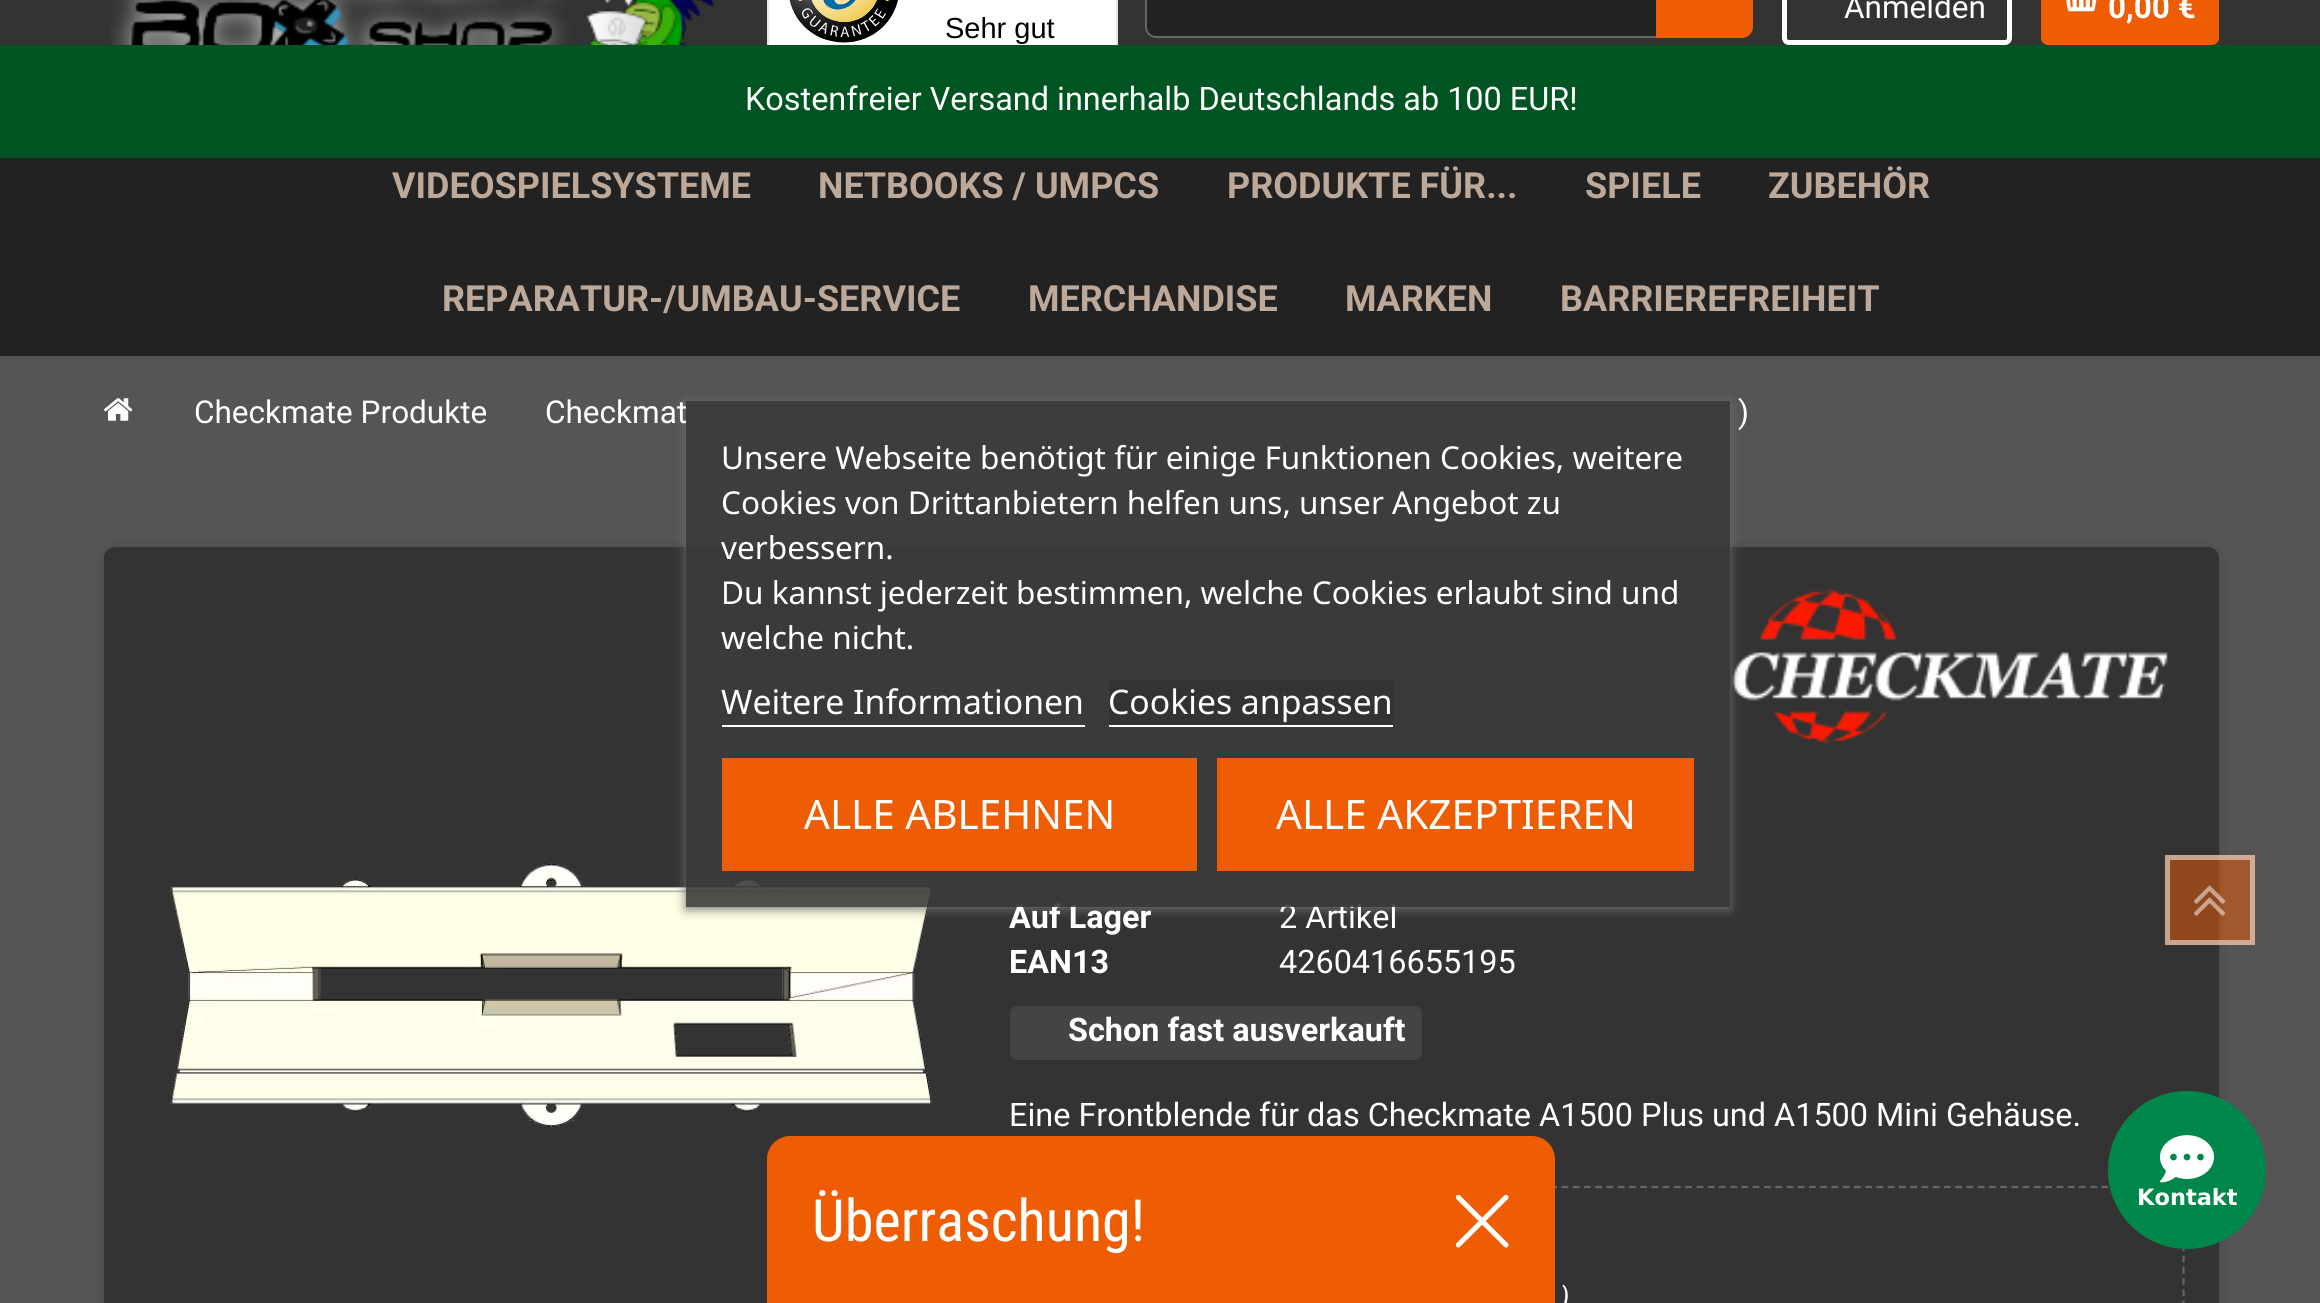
import math
import cairo

surface = cairo.ImageSurface(cairo.FORMAT_RGB24, 2320, 1303)
ctx = cairo.Context(surface)
options = cairo.FontOptions()
options.set_hint_metrics(cairo.HINT_METRICS_OFF)
options.set_hint_style(cairo.HINT_STYLE_NONE)
ctx.set_font_options(options)
ctx.set_miter_limit(4)


def set_color(code):
    ctx.set_source_rgb(*(v / 255 for v in bytes.fromhex(code[-6:])))


def draw_text(x, y, s, family, size, color, bold=False, italic=False):
    ctx.select_font_face(family, cairo.FONT_SLANT_ITALIC if italic else cairo.FONT_SLANT_NORMAL, cairo.FONT_WEIGHT_BOLD if bold else cairo.FONT_WEIGHT_NORMAL)
    ctx.set_font_size(size)
    set_color(color)
    ctx.move_to(x, y)
    ctx.show_text(s)


def fill_rect(x, y, w, h, color):
    set_color(color)
    ctx.rectangle(x, y, w, h)
    ctx.fill()


def rounded_rect(x, y, w, h, r):
    ctx.new_sub_path()
    for i, (u, v) in enumerate([(x + w - r, y + h - r), (x + r, y + h - r), (x + r, y + r), (x + w - r, y + r)]):
        ctx.arc(u, v, r, i * math.pi / 2, (i + 1) * math.pi / 2)
    ctx.close_path()


def draw_shadow(x, y, w, h, r, blur, alpha):
    ctx.push_group_with_content(cairo.CONTENT_ALPHA)
    ctx.set_operator(cairo.OPERATOR_SOURCE)
    for i in range(15, -16, -2):
        e = blur * i / 6
        if min(w, h) + 2 * e > 0:
            ctx.set_source_rgba(0, 0, 0, alpha * math.erfc((i - 1) / 8.5) / 2)
            rounded_rect(x - e, y - e, w + 2 * e, h + 2 * e, max(0, min(r + e + blur * .6, min(w, h) / 2 + e)))
            ctx.fill()
    ctx.mask(ctx.pop_group())


def draw_image(path, x, y, w, h):
    ctx.save()
    ctx.set_source_surface(cairo.ImageSurface.create_from_png(path), x, y)
    ctx.rectangle(x, y, w, h)
    ctx.fill()
    ctx.restore()


set_color("#555555")
ctx.paint()
fill_rect(0, 0, 2320, 45, "#333333")
draw_image("assets/img1.png", 111, 0, 604, 45)
set_color("#222222")
rounded_rect(1146, -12, 604, 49, 10)
ctx.fill_preserve()
set_color("#666666")
ctx.stroke()
set_color("#ee5c04")
ctx.new_path()
ctx.move_to(1656, -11)
ctx.line_to(1742, -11)
ctx.curve_to(1748, -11, 1753, -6, 1753, 0)
ctx.line_to(1753, 27)
ctx.curve_to(1753, 33, 1748, 38, 1742, 38)
ctx.line_to(1656, 38)
ctx.close_path()
ctx.fill()
rounded_rect(1784.5, -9.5, 225, 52, 4.5)
set_color("#ffffff")
ctx.set_line_width(5)
ctx.stroke()
draw_text(1844, 18, "Anmelden", "Roboto", 31.5, "#ffffff")
set_color("#ee5c04")
rounded_rect(2041, -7, 178, 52, 7)
ctx.fill()
draw_image("assets/img2.png", 2066, 0, 31, 12)
draw_text(2108, 18, "0,00 €", "Roboto", 31.5, "#ffffff", bold=True)
fill_rect(769, 0, 347, 45, "#ffffff")
ctx.rectangle(768, -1, 349, 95)
set_color("#e5e5e5")
ctx.set_line_width(2)
ctx.stroke()
draw_image("assets/img3.png", 789, 0, 109, 43)
draw_text(945, 38, "Sehr gut", "Liberation Sans", 29, "#000000")
set_color("#000000")
draw_shadow(104, 549, 2115, 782, 11, 5.5, 0.2)
set_color("#333333")
rounded_rect(104, 547, 2115, 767, 11)
ctx.fill()
draw_image("assets/img5.png", 170, 863, 763, 265)
draw_image("assets/img6.png", 1732, 589, 437, 155)
ctx.save()
ctx.set_fill_rule(cairo.FILL_RULE_EVEN_ODD)
ctx.new_path()
ctx.move_to(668, 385)
ctx.line_to(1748, 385)
ctx.line_to(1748, 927)
ctx.line_to(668, 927)
ctx.close_path()
ctx.move_to(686, 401)
ctx.line_to(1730, 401)
ctx.line_to(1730, 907)
ctx.line_to(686, 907)
ctx.close_path()
ctx.clip()
set_color("#707070")
draw_shadow(686, 403, 1044, 506, 0, 5.5, 1)
ctx.restore()
draw_text(545, 423, "Checkmat", "Roboto", 31.5, "#ffffff")
draw_text(1009, 928, "Auf Lager", "Roboto", 32.4, "#ffffff", bold=True)
draw_text(1279, 928, "2 Artikel", "Roboto", 32.4, "#ffffff")
ctx.set_source_rgba(0.231, 0.231, 0.231, 0.9)
ctx.rectangle(686, 401, 1044, 506)
ctx.fill()
draw_text(721, 469, "Unsere Webseite benötigt für einige Funktionen Cookies, weitere", "Noto Sans", 31.5, "#ffffff")
draw_text(721, 514, "Cookies von Drittanbietern helfen uns, unser Angebot zu", "Noto Sans", 31.5, "#ffffff")
draw_text(721, 559, "verbessern.", "Noto Sans", 31.5, "#ffffff")
draw_text(721, 604, "Du kannst jederzeit bestimmen, welche Cookies erlaubt sind und", "Noto Sans", 31.5, "#ffffff")
draw_text(721, 649, "welche nicht.", "Noto Sans", 31.5, "#ffffff")
draw_text(721, 714, "Weitere Informationen", "Noto Sans", 33.75, "#ffffff")
fill_rect(722, 725, 363, 2, "#ffffff")
fill_rect(1109, 680, 284, 45, "#333333")
draw_text(1108, 714, "Cookies anpassen", "Noto Sans", 33.75, "#ffffff")
fill_rect(1109, 725, 284, 2, "#ffffff")
fill_rect(722, 758, 475, 113, "#ee5c04")
draw_text(804, 829, "ALLE ABLEHNEN", "Noto Sans", 40.5, "#ffffff")
fill_rect(1217, 758, 477, 113, "#ee5c04")
draw_text(1276, 829, "ALLE AKZEPTIEREN", "Noto Sans", 40.5, "#ffffff")
fill_rect(0, 45, 2320, 113, "#005421")
draw_text(745, 110, "Kostenfreier Versand innerhalb Deutschlands ab 100 EUR!", "Roboto", 32.4, "#ffffff")
fill_rect(0, 158, 2320, 198, "#222222")
draw_text(392, 198, "VIDEOSPIELSYSTEME", "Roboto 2", 36, "#bda999", bold=True)
draw_text(818, 198, "NETBOOKS / UMPCS", "Roboto 2", 36, "#bda999", bold=True)
draw_text(1227, 198, "PRODUKTE FÜR...", "Roboto 2", 36, "#bda999", bold=True)
draw_text(1585, 198, "SPIELE", "Roboto 2", 36, "#bda999", bold=True)
draw_text(1768, 198, "ZUBEHÖR", "Roboto 2", 36, "#bda999", bold=True)
draw_text(442, 311, "REPARATUR-/UMBAU-SERVICE", "Roboto 2", 36, "#bda999", bold=True)
draw_text(1028, 311, "MERCHANDISE", "Roboto 2", 36, "#bda999", bold=True)
draw_text(1345, 311, "MARKEN", "Roboto 2", 36, "#bda999", bold=True)
draw_text(1560, 311, "BARRIEREFREIHEIT", "Roboto 2", 36, "#bda999", bold=True)
draw_image("assets/img4.png", 104, 398, 29, 23)
draw_text(194, 423, "Checkmate Produkte", "Roboto", 31.5, "#ffffff")
draw_text(1738, 423, ")", "Roboto", 31.5, "#ffffff")
draw_text(1009, 973, "EAN13", "Roboto", 32.4, "#ffffff", bold=True)
draw_text(1279, 973, "4260416655195", "Roboto", 32.4, "#ffffff")
set_color("#444444")
rounded_rect(1010, 1006, 412, 54, 7)
ctx.fill()
draw_text(1068, 1041, "Schon fast ausverkauft", "Roboto", 32.4, "#ffffff", bold=True)
draw_text(1009, 1126, "Eine Frontblende für das Checkmate A1500 Plus und A1500 Mini Gehäuse.", "Roboto", 32.4, "#ffffff")
ctx.new_path()
ctx.move_to(1021.5, 1187)
ctx.line_to(2173.5, 1187)
ctx.curve_to(2179, 1187, 2183.5, 1191.5, 2183.5, 1197)
ctx.line_to(2183.5, 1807)
ctx.curve_to(2183.5, 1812.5, 2179, 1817, 2173.5, 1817)
ctx.line_to(1021.5, 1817)
ctx.curve_to(1016, 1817, 1011.5, 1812.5, 1011.5, 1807)
ctx.line_to(1011.5, 1197)
ctx.curve_to(1011.5, 1191.5, 1016, 1187, 1021.5, 1187)
ctx.close_path()
set_color("#666666")
ctx.set_line_width(2.2)
ctx.set_dash([6.75, 4.5])
ctx.stroke()
draw_text(1560, 1307, ")", "Roboto", 28, "#ffffff", italic=True)
ctx.set_source_rgba(0.933, 0.361, 0.016, 0.5)
ctx.rectangle(2165, 855, 90, 90)
ctx.fill()
ctx.rectangle(2167.5, 857.5, 85, 85)
ctx.set_source_rgba(1, 1, 1, 0.5)
ctx.set_line_width(5)
ctx.set_dash([])
ctx.stroke()
draw_image("assets/img7.png", 2194, 885, 32, 31)
set_color("#ee5c04")
ctx.new_path()
ctx.move_to(790, 1136)
ctx.line_to(1532, 1136)
ctx.curve_to(1544.5, 1136, 1555, 1146.5, 1555, 1159)
ctx.line_to(1555, 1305)
ctx.line_to(767, 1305)
ctx.line_to(767, 1159)
ctx.curve_to(767, 1146.5, 777.5, 1136, 790, 1136)
ctx.close_path()
ctx.fill()
draw_text(812, 1241, "Überraschung!", "Roboto Condensed", 58.25, "#ffffff")
draw_image("assets/img8.png", 1456, 1195, 53, 53)
set_color("#008749")
ctx.arc(2187, 1170, 79, 0, 2 * math.pi)
ctx.fill()
draw_image("assets/img9.png", 2160, 1135, 54, 48)
draw_text(2137, 1205, "Kontakt", "DejaVu Sans", 22.5, "#ffffff", bold=True)
surface.write_to_png("output.png")
